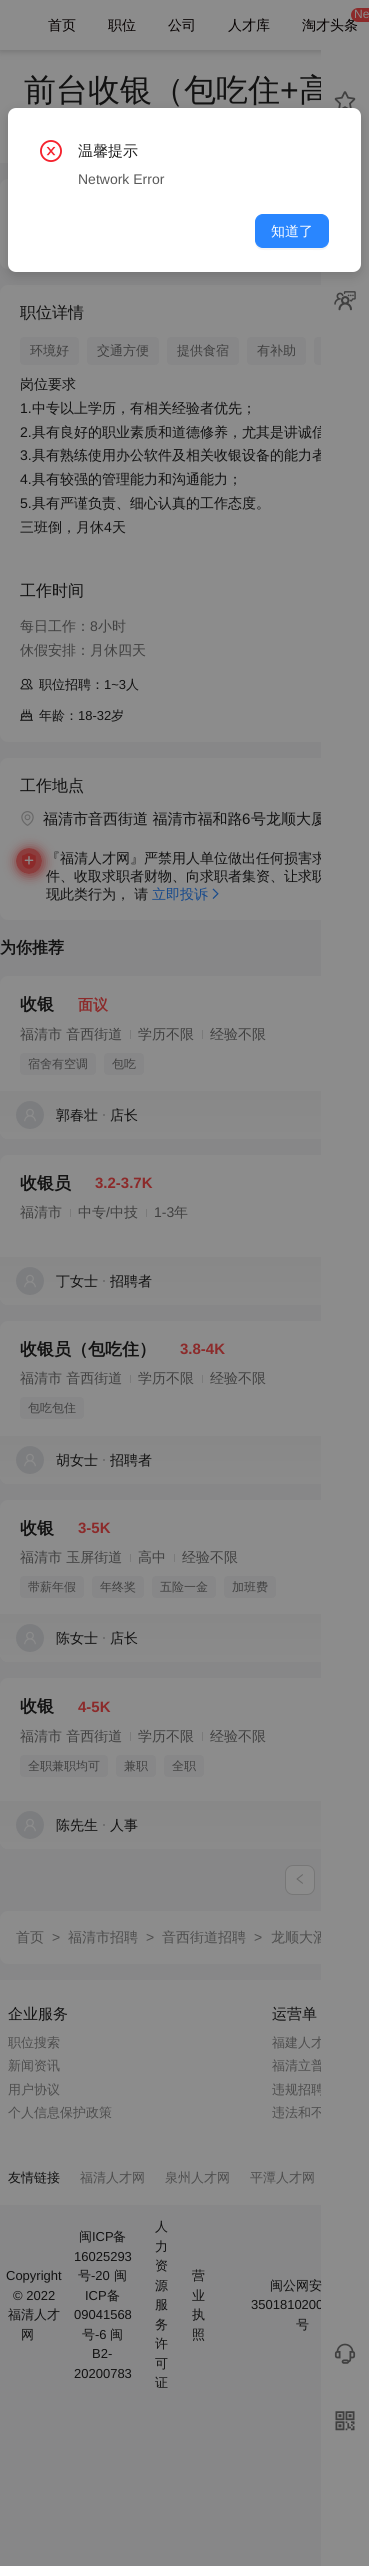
import math
import cairo

surface = cairo.ImageSurface(cairo.FORMAT_RGB24, 369, 2566)
ctx = cairo.Context(surface)
options = cairo.FontOptions()
options.set_hint_metrics(cairo.HINT_METRICS_OFF)
options.set_hint_style(cairo.HINT_STYLE_NONE)
ctx.set_font_options(options)
ctx.set_miter_limit(4)


def set_color(code):
    ctx.set_source_rgb(*(v / 255 for v in bytes.fromhex(code[-6:])))


def draw_text(x, y, s, family, size, color, bold=False, italic=False):
    ctx.select_font_face(family, cairo.FONT_SLANT_ITALIC if italic else cairo.FONT_SLANT_NORMAL, cairo.FONT_WEIGHT_BOLD if bold else cairo.FONT_WEIGHT_NORMAL)
    ctx.set_font_size(size)
    set_color(color)
    ctx.move_to(x, y)
    ctx.show_text(s)


def fill_rect(x, y, w, h, color):
    set_color(color)
    ctx.rectangle(x, y, w, h)
    ctx.fill()


def rounded_rect(x, y, w, h, r):
    ctx.new_sub_path()
    for i, (u, v) in enumerate([(x + w - r, y + h - r), (x + r, y + h - r), (x + r, y + r), (x + w - r, y + r)]):
        ctx.arc(u, v, r, i * math.pi / 2, (i + 1) * math.pi / 2)
    ctx.close_path()


def draw_shadow(x, y, w, h, r, blur, alpha):
    ctx.push_group_with_content(cairo.CONTENT_ALPHA)
    ctx.set_operator(cairo.OPERATOR_SOURCE)
    for i in range(15, -16, -2):
        e = blur * i / 6
        if min(w, h) + 2 * e > 0:
            ctx.set_source_rgba(0, 0, 0, alpha * math.erfc((i - 1) / 8.5) / 2)
            rounded_rect(x - e, y - e, w + 2 * e, h + 2 * e, max(0, min(r + e + blur * .6, min(w, h) / 2 + e)))
            ctx.fill()
    ctx.mask(ctx.pop_group())


def draw_image(path, x, y, w, h):
    ctx.save()
    ctx.set_source_surface(cairo.ImageSurface.create_from_png(path), x, y)
    ctx.rectangle(x, y, w, h)
    ctx.fill()
    ctx.restore()


set_color("#878788")
ctx.paint()
fill_rect(0, 50, 321, 113, "#8c8c8c")
set_color("#000000")
draw_shadow(0, 1, 369, 50, 0, 4, 0.2)
fill_rect(0, 0, 369, 50, "#8c8c8c")
draw_text(48, 30, "首页", "WenQuanYi Zen Hei Medium", 14, "#060101")
draw_text(108, 30, "职位", "WenQuanYi Zen Hei Medium", 14, "#060101")
draw_text(168, 30, "公司", "WenQuanYi Zen Hei Medium", 14, "#060101")
draw_text(228, 30, "人才库", "WenQuanYi Zen Hei Medium", 14, "#060101")
draw_text(302, 30, "淘才头条", "WenQuanYi Zen Hei Medium", 14, "#060101")
set_color("#8c2a2a")
rounded_rect(351, 8, 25, 14, 7)
ctx.fill()
draw_text(354, 18, "Ne", "Liberation Sans", 12, "#8c8c8c")
draw_text(24, 101, "前台收银（包吃住", "WenQuanYi Zen Hei Medium", 32, "#121212")
draw_text(280, 101, "+", "Liberation Sans", 32, "#121212")
draw_text(299, 101, "高", "WenQuanYi Zen Hei Medium", 32, "#121212")
set_color("#8c8c8c")
rounded_rect(0, 179, 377, 90, 8)
ctx.fill()
rounded_rect(0, 285, 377, 457, 8)
ctx.fill()
draw_text(20, 318, "职位详情", "WenQuanYi Zen Hei Medium", 16, "#121212")
set_color("#878788")
rounded_rect(20, 337, 59, 28, 4)
ctx.fill()
draw_text(30, 355, "环境好", "WenQuanYi Zen Hei Medium", 13, "#404040")
set_color("#878788")
rounded_rect(87, 337, 72, 28, 4)
ctx.fill()
draw_text(97, 355, "交通方便", "WenQuanYi Zen Hei Medium", 13, "#404040")
set_color("#878788")
rounded_rect(167, 337, 72, 28, 4)
ctx.fill()
draw_text(177, 355, "提供食宿", "WenQuanYi Zen Hei Medium", 13, "#404040")
set_color("#878788")
rounded_rect(247, 337, 59, 28, 4)
ctx.fill()
draw_text(257, 355, "有补助", "WenQuanYi Zen Hei Medium", 13, "#404040")
set_color("#878788")
rounded_rect(314, 337, 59, 28, 4)
ctx.fill()
draw_text(20, 389, "岗位要求", "WenQuanYi Zen Hei Medium", 14, "#121212")
draw_text(20, 413, "1.", "Liberation Sans", 14, "#121212")
draw_text(32, 413, "中专以上学历，有相关经验者优先；", "WenQuanYi Zen Hei Medium", 14, "#121212")
draw_text(20, 437, "2.", "Liberation Sans", 14, "#121212")
draw_text(32, 437, "具有良好的职业素质和道德修养，尤其是讲诚信", "WenQuanYi Zen Hei Medium", 14, "#121212")
draw_text(20, 460, "3.", "Liberation Sans", 14, "#121212")
draw_text(32, 460, "具有熟练使用办公软件及相关收银设备的能力者", "WenQuanYi Zen Hei Medium", 14, "#121212")
draw_text(20, 484, "4.", "Liberation Sans", 14, "#121212")
draw_text(32, 484, "具有较强的管理能力和沟通能力；", "WenQuanYi Zen Hei Medium", 14, "#121212")
draw_text(20, 508, "5.", "Liberation Sans", 14, "#121212")
draw_text(32, 508, "具有严谨负责、细心认真的工作态度。", "WenQuanYi Zen Hei Medium", 14, "#121212")
draw_text(20, 532, "三班倒，月休", "WenQuanYi Zen Hei Medium", 14, "#121212")
draw_text(104, 532, "4", "Liberation Sans", 14, "#121212")
draw_text(112, 532, "天", "WenQuanYi Zen Hei Medium", 14, "#121212")
draw_text(20, 596, "工作时间", "WenQuanYi Zen Hei Medium", 16, "#121212")
draw_text(20, 631, "每日工作：", "WenQuanYi Zen Hei Medium", 14, "#404040")
draw_text(90, 631, "8", "Liberation Sans", 14, "#404040")
draw_text(98, 631, "小时", "WenQuanYi Zen Hei Medium", 14, "#404040")
draw_text(20, 655, "休假安排：月休四天", "WenQuanYi Zen Hei Medium", 14, "#404040")
draw_image("assets/img1.png", 20, 678, 13, 12)
draw_text(39, 689, "职位招聘：", "WenQuanYi Zen Hei Medium", 13, "#121212")
draw_text(104, 689, "1~3", "Liberation Sans", 13, "#121212")
draw_text(126, 689, "人", "WenQuanYi Zen Hei Medium", 13, "#121212")
draw_image("assets/img2.png", 20, 709, 13, 12)
draw_text(39, 720, "年龄：", "WenQuanYi Zen Hei Medium", 13, "#121212")
draw_text(78, 720, "18-32", "Liberation Sans", 13, "#121212")
draw_text(111, 720, "岁", "WenQuanYi Zen Hei Medium", 13, "#121212")
set_color("#8c8c8c")
rounded_rect(0, 758, 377, 162, 8)
ctx.fill()
draw_text(20, 791, "工作地点", "WenQuanYi Zen Hei Medium", 16, "#121212")
draw_image("assets/img3.png", 21, 811, 13, 15)
draw_text(43, 824, "福清市音西街道 福清市福和路", "WenQuanYi Zen Hei Medium", 15, "#121212")
draw_text(242, 824, "6", "Liberation Sans", 15, "#121212")
draw_text(251, 824, "号龙顺大厦", "WenQuanYi Zen Hei Medium", 15, "#121212")
ctx.save()
ctx.set_fill_rule(cairo.FILL_RULE_EVEN_ODD)
ctx.new_path()
ctx.move_to(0, 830)
ctx.line_to(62, 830)
ctx.line_to(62, 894)
ctx.line_to(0, 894)
ctx.close_path()
ctx.move_to(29, 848)
ctx.curve_to(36, 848, 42, 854, 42, 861)
ctx.curve_to(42, 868, 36, 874, 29, 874)
ctx.curve_to(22, 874, 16, 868, 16, 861)
ctx.curve_to(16, 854, 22, 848, 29, 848)
ctx.close_path()
ctx.clip()
set_color("#8c2a2a")
draw_shadow(17, 849, 26, 26, 13, 6, 1)
ctx.restore()
ctx.set_source_rgba(0.549, 0.165, 0.165, 0.8)
ctx.arc(29, 861, 13, 0, 2 * math.pi)
ctx.fill()
draw_image("assets/img4.png", 22, 853, 14, 16)
draw_text(46, 863, "『福清人才网』严禁用人单位做出任何损害求", "WenQuanYi Zen Hei Medium", 14, "#121212")
draw_text(46, 881, "件、收取求职者财物、向求职者集资、让求职", "WenQuanYi Zen Hei Medium", 14, "#121212")
draw_text(46, 899, "现此类行为， 请", "WenQuanYi Zen Hei Medium", 14, "#121212")
draw_text(152, 899, "立即投诉", "WenQuanYi Zen Hei Medium", 14, "#174a8c")
draw_image("assets/img5.png", 212, 888, 7, 11)
draw_text(0, 953, "为你推荐", "WenQuanYi Zen Hei", 16, "#121212", bold=True)
set_color("#8c8c8c")
rounded_rect(0, 976, 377, 163, 8)
ctx.fill()
draw_text(20, 1010, "收银", "WenQuanYi Zen Hei", 17, "#121212", bold=True)
draw_text(78, 1010, "面议", "WenQuanYi Zen Hei", 15, "#8c2a2a", bold=True)
draw_text(20, 1039, "福清市 音西街道", "WenQuanYi Zen Hei Medium", 14, "#404040")
fill_rect(130, 1030, 1, 9, "#7a7a7a")
draw_text(138, 1039, "学历不限", "WenQuanYi Zen Hei Medium", 14, "#404040")
fill_rect(202, 1030, 1, 9, "#7a7a7a")
draw_text(210, 1039, "经验不限", "WenQuanYi Zen Hei Medium", 14, "#404040")
set_color("#878788")
rounded_rect(20, 1053, 76, 22, 4)
ctx.fill()
draw_text(28, 1068, "宿舍有空调", "WenQuanYi Zen Hei Medium", 12, "#404040")
set_color("#878788")
rounded_rect(104, 1053, 40, 22, 4)
ctx.fill()
draw_text(112, 1068, "包吃", "WenQuanYi Zen Hei Medium", 12, "#404040")
gradient = cairo.LinearGradient(357, 1091, 357, 1139)
gradient.add_color_stop_rgba(0, 0.533, 0.533, 0.533, 1)
gradient.add_color_stop_rgba(1, 0.545, 0.545, 0.545, 1)
ctx.set_source(gradient)
ctx.new_path()
ctx.move_to(0, 1091)
ctx.line_to(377, 1091)
ctx.line_to(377, 1131)
ctx.curve_to(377, 1135.5, 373.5, 1139, 369, 1139)
ctx.line_to(8, 1139)
ctx.curve_to(3.5, 1139, 0, 1135.5, 0, 1131)
ctx.close_path()
ctx.fill()
set_color("#7c7d7f")
ctx.arc(30, 1115, 14, 0, 2 * math.pi)
ctx.fill()
draw_image("assets/img6.png", 24, 1108, 12, 14)
draw_text(56, 1120, "郭春壮", "WenQuanYi Zen Hei Medium", 14, "#121212")
set_color("#676767")
ctx.new_path()
ctx.arc(104, 1115, 1, 0, 2 * math.pi)
ctx.fill()
draw_text(110, 1120, "店长", "WenQuanYi Zen Hei Medium", 14, "#121212")
set_color("#8c8c8c")
rounded_rect(0, 1155, 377, 150, 8)
ctx.fill()
draw_text(20, 1189, "收银员", "WenQuanYi Zen Hei", 17, "#121212", bold=True)
draw_text(95, 1188, "3.2-3.7K", "Liberation Sans", 15, "#8c2a2a", bold=True)
draw_text(20, 1217, "福清市", "WenQuanYi Zen Hei Medium", 14, "#404040")
fill_rect(70, 1209, 1, 8, "#7a7a7a")
draw_text(78, 1217, "中专", "WenQuanYi Zen Hei Medium", 14, "#404040")
draw_text(106, 1217, "/", "Liberation Sans", 14, "#404040")
draw_text(110, 1217, "中技", "WenQuanYi Zen Hei Medium", 14, "#404040")
fill_rect(146, 1209, 1, 8, "#7a7a7a")
draw_text(154, 1217, "1-3", "Liberation Sans", 14, "#404040")
draw_text(174, 1217, "年", "WenQuanYi Zen Hei Medium", 14, "#404040")
gradient = cairo.LinearGradient(357, 1257, 357, 1305)
gradient.add_color_stop_rgba(0, 0.533, 0.533, 0.533, 1)
gradient.add_color_stop_rgba(1, 0.545, 0.545, 0.545, 1)
ctx.set_source(gradient)
ctx.new_path()
ctx.move_to(0, 1257)
ctx.line_to(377, 1257)
ctx.line_to(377, 1297)
ctx.curve_to(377, 1301.5, 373.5, 1305, 369, 1305)
ctx.line_to(8, 1305)
ctx.curve_to(3.5, 1305, 0, 1301.5, 0, 1297)
ctx.close_path()
ctx.fill()
set_color("#7c7d7f")
ctx.arc(30, 1281, 14, 0, 2 * math.pi)
ctx.fill()
draw_image("assets/img6.png", 24, 1274, 12, 14)
draw_text(56, 1286, "丁女士", "WenQuanYi Zen Hei Medium", 14, "#121212")
set_color("#676767")
ctx.new_path()
ctx.arc(104, 1281, 1, 0, 2 * math.pi)
ctx.fill()
draw_text(110, 1286, "招聘者", "WenQuanYi Zen Hei Medium", 14, "#121212")
set_color("#8c8c8c")
rounded_rect(0, 1321, 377, 163, 8)
ctx.fill()
draw_text(20, 1355, "收银员（包吃住）", "WenQuanYi Zen Hei", 17, "#121212", bold=True)
draw_text(180, 1354, "3.8-4K", "Liberation Sans", 15, "#8c2a2a", bold=True)
draw_text(20, 1383, "福清市 音西街道", "WenQuanYi Zen Hei Medium", 14, "#404040")
fill_rect(130, 1375, 1, 8, "#7a7a7a")
draw_text(138, 1383, "学历不限", "WenQuanYi Zen Hei Medium", 14, "#404040")
fill_rect(202, 1375, 1, 8, "#7a7a7a")
draw_text(210, 1383, "经验不限", "WenQuanYi Zen Hei Medium", 14, "#404040")
set_color("#878788")
rounded_rect(20, 1397, 64, 22, 4)
ctx.fill()
draw_text(28, 1412, "包吃包住", "WenQuanYi Zen Hei Medium", 12, "#404040")
gradient = cairo.LinearGradient(357, 1436, 357, 1484)
gradient.add_color_stop_rgba(0, 0.533, 0.533, 0.533, 1)
gradient.add_color_stop_rgba(1, 0.545, 0.545, 0.545, 1)
ctx.set_source(gradient)
ctx.new_path()
ctx.move_to(0, 1436)
ctx.line_to(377, 1436)
ctx.line_to(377, 1476)
ctx.curve_to(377, 1480.5, 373.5, 1484, 369, 1484)
ctx.line_to(8, 1484)
ctx.curve_to(3.5, 1484, 0, 1480.5, 0, 1476)
ctx.close_path()
ctx.fill()
set_color("#7c7d7f")
ctx.arc(30, 1460, 14, 0, 2 * math.pi)
ctx.fill()
draw_image("assets/img6.png", 24, 1453, 12, 14)
draw_text(56, 1465, "胡女士", "WenQuanYi Zen Hei Medium", 14, "#121212")
set_color("#676767")
ctx.new_path()
ctx.arc(104, 1460, 1, 0, 2 * math.pi)
ctx.fill()
draw_text(110, 1465, "招聘者", "WenQuanYi Zen Hei Medium", 14, "#121212")
set_color("#8c8c8c")
rounded_rect(0, 1500, 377, 162, 8)
ctx.fill()
draw_text(20, 1534, "收银", "WenQuanYi Zen Hei", 17, "#121212", bold=True)
draw_text(78, 1533, "3-5K", "Liberation Sans", 15, "#8c2a2a", bold=True)
draw_text(20, 1562, "福清市 玉屏街道", "WenQuanYi Zen Hei Medium", 14, "#404040")
fill_rect(130, 1554, 1, 8, "#7a7a7a")
draw_text(138, 1562, "高中", "WenQuanYi Zen Hei Medium", 14, "#404040")
fill_rect(174, 1554, 1, 8, "#7a7a7a")
draw_text(182, 1562, "经验不限", "WenQuanYi Zen Hei Medium", 14, "#404040")
set_color("#878788")
rounded_rect(20, 1576, 64, 22, 4)
ctx.fill()
draw_text(28, 1591, "带薪年假", "WenQuanYi Zen Hei Medium", 12, "#404040")
set_color("#878788")
rounded_rect(92, 1576, 52, 22, 4)
ctx.fill()
draw_text(100, 1591, "年终奖", "WenQuanYi Zen Hei Medium", 12, "#404040")
set_color("#878788")
rounded_rect(152, 1576, 64, 22, 4)
ctx.fill()
draw_text(160, 1591, "五险一金", "WenQuanYi Zen Hei Medium", 12, "#404040")
set_color("#878788")
rounded_rect(224, 1576, 52, 22, 4)
ctx.fill()
draw_text(232, 1591, "加班费", "WenQuanYi Zen Hei Medium", 12, "#404040")
gradient = cairo.LinearGradient(357, 1614, 357, 1662)
gradient.add_color_stop_rgba(0, 0.533, 0.533, 0.533, 1)
gradient.add_color_stop_rgba(1, 0.545, 0.545, 0.545, 1)
ctx.set_source(gradient)
ctx.new_path()
ctx.move_to(0, 1614)
ctx.line_to(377, 1614)
ctx.line_to(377, 1654)
ctx.curve_to(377, 1658.5, 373.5, 1662, 369, 1662)
ctx.line_to(8, 1662)
ctx.curve_to(3.5, 1662, 0, 1658.5, 0, 1654)
ctx.close_path()
ctx.fill()
set_color("#7c7d7f")
ctx.arc(30, 1638, 14, 0, 2 * math.pi)
ctx.fill()
draw_image("assets/img6.png", 24, 1631, 12, 14)
draw_text(56, 1643, "陈女士", "WenQuanYi Zen Hei Medium", 14, "#121212")
set_color("#676767")
ctx.new_path()
ctx.arc(104, 1638, 1, 0, 2 * math.pi)
ctx.fill()
draw_text(110, 1643, "店长", "WenQuanYi Zen Hei Medium", 14, "#121212")
set_color("#8c8c8c")
rounded_rect(0, 1678, 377, 171, 8)
ctx.fill()
draw_text(20, 1712, "收银", "WenQuanYi Zen Hei", 17, "#121212", bold=True)
draw_text(78, 1712, "4-5K", "Liberation Sans", 15, "#8c2a2a", bold=True)
draw_text(20, 1741, "福清市 音西街道", "WenQuanYi Zen Hei Medium", 14, "#404040")
fill_rect(130, 1732, 1, 9, "#7a7a7a")
draw_text(138, 1741, "学历不限", "WenQuanYi Zen Hei Medium", 14, "#404040")
fill_rect(202, 1732, 1, 9, "#7a7a7a")
draw_text(210, 1741, "经验不限", "WenQuanYi Zen Hei Medium", 14, "#404040")
set_color("#878788")
rounded_rect(20, 1755, 88, 22, 4)
ctx.fill()
draw_text(28, 1770, "全职兼职均可", "WenQuanYi Zen Hei Medium", 12, "#404040")
set_color("#878788")
rounded_rect(116, 1755, 40, 22, 4)
ctx.fill()
draw_text(124, 1770, "兼职", "WenQuanYi Zen Hei Medium", 12, "#404040")
set_color("#878788")
rounded_rect(164, 1755, 40, 22, 4)
ctx.fill()
draw_text(172, 1770, "全职", "WenQuanYi Zen Hei Medium", 12, "#404040")
gradient = cairo.LinearGradient(357, 1801, 357, 1849)
gradient.add_color_stop_rgba(0, 0.533, 0.533, 0.533, 1)
gradient.add_color_stop_rgba(1, 0.545, 0.545, 0.545, 1)
ctx.set_source(gradient)
ctx.new_path()
ctx.move_to(0, 1801)
ctx.line_to(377, 1801)
ctx.line_to(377, 1841)
ctx.curve_to(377, 1845.5, 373.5, 1849, 369, 1849)
ctx.line_to(8, 1849)
ctx.curve_to(3.5, 1849, 0, 1845.5, 0, 1841)
ctx.close_path()
ctx.fill()
set_color("#7c7d7f")
ctx.arc(30, 1825, 14, 0, 2 * math.pi)
ctx.fill()
draw_image("assets/img6.png", 24, 1818, 12, 14)
draw_text(56, 1830, "陈先生", "WenQuanYi Zen Hei Medium", 14, "#121212")
set_color("#676767")
ctx.new_path()
ctx.arc(104, 1825, 1, 0, 2 * math.pi)
ctx.fill()
draw_text(110, 1830, "人事", "WenQuanYi Zen Hei Medium", 14, "#121212")
set_color("#8c8c8c")
rounded_rect(285.5, 1865.5, 29, 29, 7.5)
ctx.fill_preserve()
set_color("#777777")
ctx.set_line_width(1)
ctx.stroke()
draw_image("assets/img7.png", 296, 1874, 7, 10)
set_color("#8c8c8c")
rounded_rect(0, 1911, 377, 53, 8)
ctx.fill()
draw_text(16, 1942, "首页", "WenQuanYi Zen Hei Medium", 14, "#4d4d4d")
draw_text(52, 1942, ">", "Liberation Sans", 14, "#4d4d4d")
draw_text(68, 1942, "福清市招聘", "WenQuanYi Zen Hei Medium", 14, "#4d4d4d")
draw_text(146, 1942, ">", "Liberation Sans", 14, "#4d4d4d")
draw_text(162, 1942, "音西街道招聘", "WenQuanYi Zen Hei Medium", 14, "#4d4d4d")
draw_text(254, 1942, ">", "Liberation Sans", 14, "#4d4d4d")
draw_text(271, 1942, "龙顺大酒", "WenQuanYi Zen Hei Medium", 14, "#4d4d4d")
fill_rect(0, 1980, 321, 225, "#8c8c8c")
draw_text(272, 2047, "福建人才", "WenQuanYi Zen Hei Medium", 13, "#4d4d4d")
draw_text(272, 2070, "福清立普", "WenQuanYi Zen Hei Medium", 13, "#4d4d4d")
draw_text(272, 2094, "违规招聘", "WenQuanYi Zen Hei Medium", 13, "#4d4d4d")
draw_text(272, 2117, "违法和不", "WenQuanYi Zen Hei Medium", 13, "#4d4d4d")
draw_text(251, 2309, "3501810200", "Liberation Sans", 13, "#121212")
fill_rect(321, 50, 48, 2516, "#8c8c8c")
draw_image("assets/img8.png", 334, 91, 22, 17)
draw_image("assets/img9.png", 334, 291, 22, 20)
draw_image("assets/img10.png", 334, 2343, 22, 21)
draw_image("assets/img11.png", 335, 2411, 20, 20)
draw_text(8, 2019, "企业服务", "WenQuanYi Zen Hei Medium", 15, "#121212")
draw_text(8, 2047, "职位搜索", "WenQuanYi Zen Hei Medium", 13, "#4d4d4d")
draw_text(8, 2070, "新闻资讯", "WenQuanYi Zen Hei Medium", 13, "#4d4d4d")
draw_text(8, 2094, "用户协议", "WenQuanYi Zen Hei Medium", 13, "#4d4d4d")
draw_text(8, 2117, "个人信息保护政策", "WenQuanYi Zen Hei Medium", 13, "#4d4d4d")
draw_text(272, 2019, "运营单", "WenQuanYi Zen Hei Medium", 15, "#121212")
draw_text(8, 2182, "友情链接", "WenQuanYi Zen Hei Medium", 13, "#121212")
draw_text(80, 2182, "福清人才网", "WenQuanYi Zen Hei Medium", 13, "#4d4d4d")
draw_text(165, 2182, "泉州人才网", "WenQuanYi Zen Hei Medium", 13, "#4d4d4d")
draw_text(250, 2182, "平潭人才网", "WenQuanYi Zen Hei Medium", 13, "#4d4d4d")
draw_text(6, 2280, "Copyright", "Liberation Sans", 13, "#121212")
draw_text(13, 2300, "© 2022", "Liberation Sans", 13, "#121212")
draw_text(8, 2319, "福清人才", "WenQuanYi Zen Hei Medium", 13, "#121212")
draw_text(21, 2339, "网", "WenQuanYi Zen Hei Medium", 13, "#121212")
draw_text(79, 2241, "闽", "WenQuanYi Zen Hei Medium", 13, "#121212")
draw_text(92, 2241, "ICP", "Liberation Sans", 13, "#121212")
draw_text(113, 2241, "备", "WenQuanYi Zen Hei Medium", 13, "#121212")
draw_text(74, 2261, "16025293", "Liberation Sans", 13, "#121212")
draw_text(78, 2280, "号", "WenQuanYi Zen Hei Medium", 13, "#121212")
draw_text(91, 2280, "-20", "Liberation Sans", 13, "#121212")
draw_text(114, 2280, "闽", "WenQuanYi Zen Hei Medium", 13, "#121212")
draw_text(85, 2300, "ICP", "Liberation Sans", 13, "#121212")
draw_text(107, 2300, "备", "WenQuanYi Zen Hei Medium", 13, "#121212")
draw_text(74, 2319, "09041568", "Liberation Sans", 13, "#121212")
draw_text(82, 2339, "号", "WenQuanYi Zen Hei Medium", 13, "#121212")
draw_text(95, 2339, "-6", "Liberation Sans", 13, "#121212")
draw_text(110, 2339, "闽", "WenQuanYi Zen Hei Medium", 13, "#121212")
draw_text(92, 2358, "B2-", "Liberation Sans", 13, "#121212")
draw_text(74, 2378, "20200783", "Liberation Sans", 13, "#121212")
draw_text(155, 2231, "人", "WenQuanYi Zen Hei Medium", 13, "#121212")
draw_text(155, 2251, "力", "WenQuanYi Zen Hei Medium", 13, "#121212")
draw_text(155, 2270, "资", "WenQuanYi Zen Hei Medium", 13, "#121212")
draw_text(155, 2290, "源", "WenQuanYi Zen Hei Medium", 13, "#121212")
draw_text(155, 2309, "服", "WenQuanYi Zen Hei Medium", 13, "#121212")
draw_text(155, 2329, "务", "WenQuanYi Zen Hei Medium", 13, "#121212")
draw_text(155, 2348, "许", "WenQuanYi Zen Hei Medium", 13, "#121212")
draw_text(155, 2368, "可", "WenQuanYi Zen Hei Medium", 13, "#121212")
draw_text(155, 2387, "证", "WenQuanYi Zen Hei Medium", 13, "#121212")
draw_text(192, 2280, "营", "WenQuanYi Zen Hei Medium", 13, "#121212")
draw_text(192, 2300, "业", "WenQuanYi Zen Hei Medium", 13, "#121212")
draw_text(192, 2319, "执", "WenQuanYi Zen Hei Medium", 13, "#121212")
draw_text(192, 2339, "照", "WenQuanYi Zen Hei Medium", 13, "#121212")
draw_text(270, 2290, "闽公网安", "WenQuanYi Zen Hei Medium", 13, "#121212")
draw_text(296, 2329, "号", "WenQuanYi Zen Hei Medium", 13, "#121212")
set_color("#000000")
draw_shadow(8, 112, 353, 164, 8, 6, 0.15)
set_color("#ffffff")
rounded_rect(8, 108, 353, 164, 8)
ctx.fill()
draw_image("assets/img12.png", 40, 140, 22, 22)
draw_text(78, 156, "温馨提示", "WenQuanYi Zen Hei Medium", 15, "#212121")
draw_text(78, 184, "Network Error", "Liberation Sans", 14, "#595959")
set_color("#f4f4f4")
ctx.new_path()
ctx.move_to(255, 240)
ctx.curve_to(255, 252, 263, 250, 273, 250)
ctx.line_to(311, 250)
ctx.curve_to(321, 250, 329, 252, 329, 240)
ctx.curve_to(329, 244, 325, 248, 321, 248)
ctx.line_to(263, 248)
ctx.curve_to(259, 248, 255, 244, 255, 240)
ctx.close_path()
ctx.fill()
set_color("#2986ff")
rounded_rect(255.5, 214.5, 73, 33, 7.5)
ctx.fill_preserve()
ctx.stroke()
draw_text(271, 236, "知道了", "WenQuanYi Zen Hei Medium", 14, "#ffffff")
surface.write_to_png("output.png")
